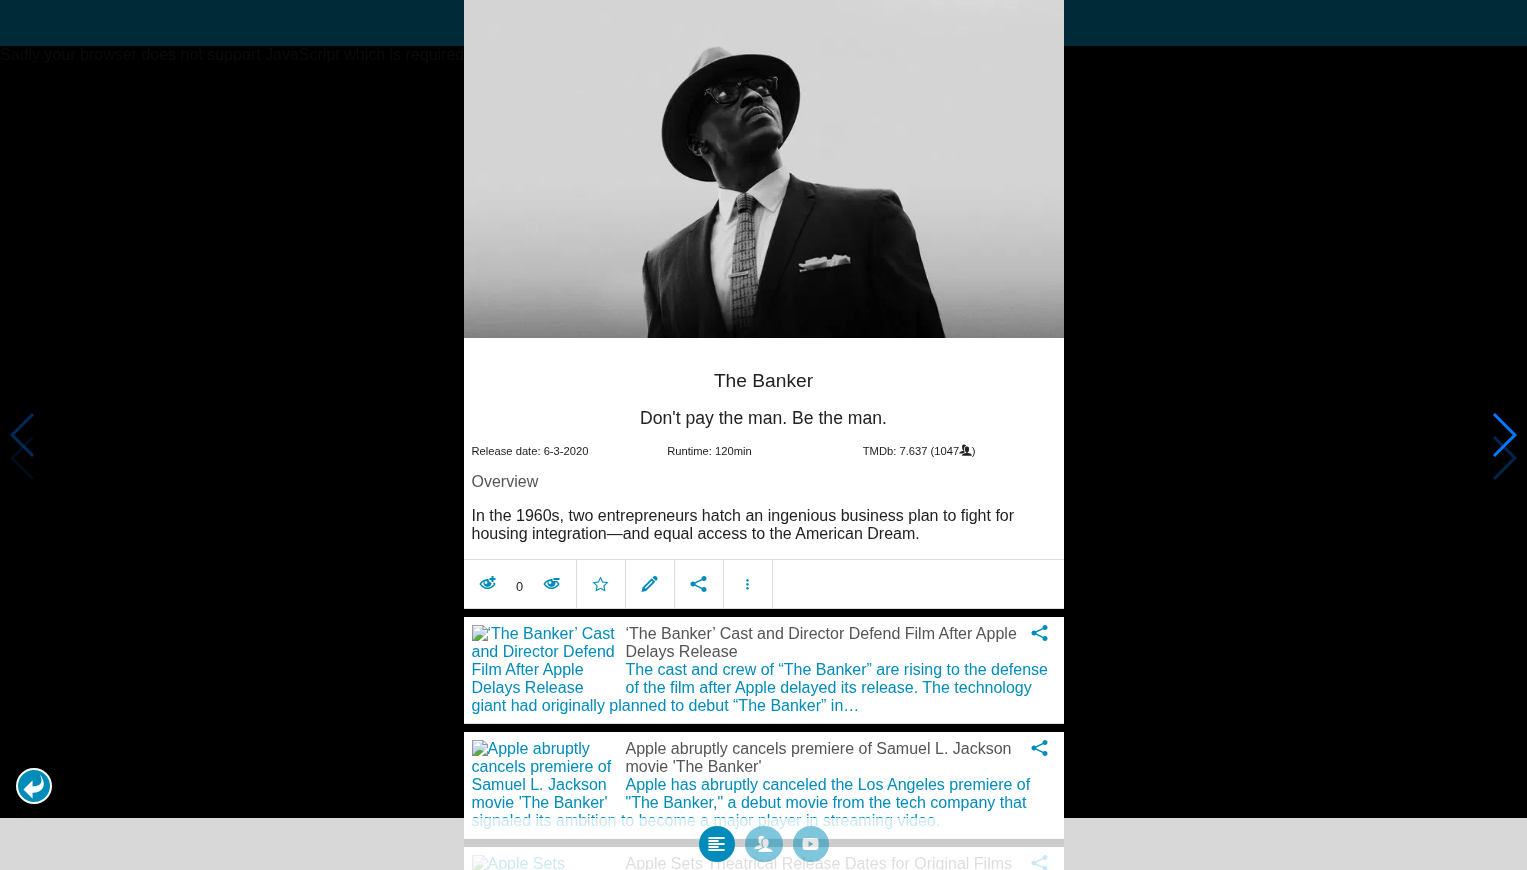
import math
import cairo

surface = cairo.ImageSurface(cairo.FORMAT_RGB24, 1527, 870)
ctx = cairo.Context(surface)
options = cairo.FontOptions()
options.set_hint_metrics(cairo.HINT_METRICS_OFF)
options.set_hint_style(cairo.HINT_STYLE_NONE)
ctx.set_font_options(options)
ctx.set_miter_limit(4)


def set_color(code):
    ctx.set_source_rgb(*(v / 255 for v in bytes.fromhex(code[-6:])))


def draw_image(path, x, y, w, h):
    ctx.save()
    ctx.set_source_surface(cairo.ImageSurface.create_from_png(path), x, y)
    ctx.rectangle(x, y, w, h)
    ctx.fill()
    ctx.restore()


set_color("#ffffff")
ctx.paint()
draw_image("assets/img1.png", 0, 0, 1527, 870)
surface.write_to_png("output.png")
